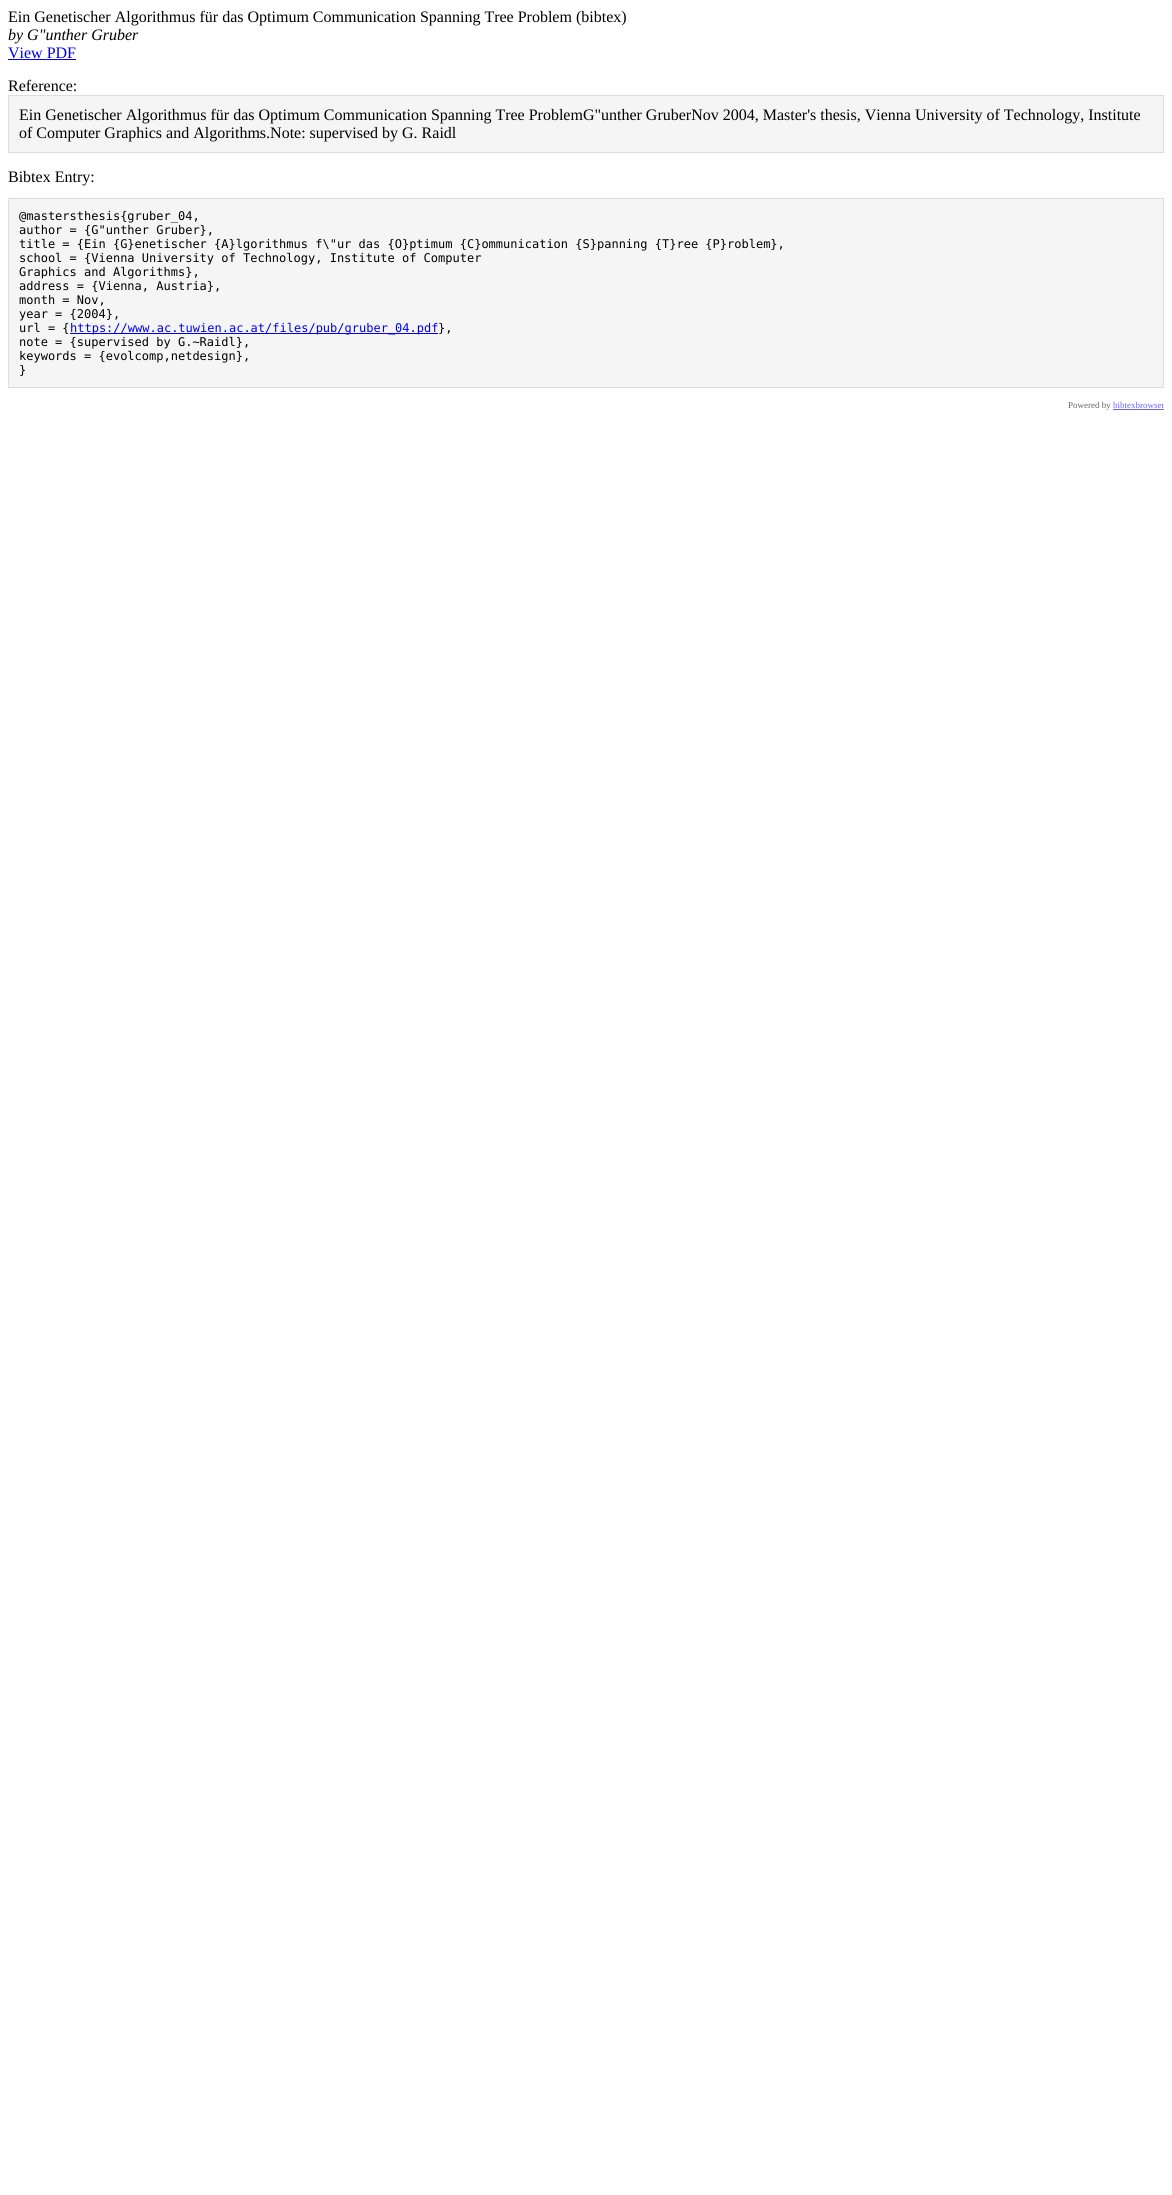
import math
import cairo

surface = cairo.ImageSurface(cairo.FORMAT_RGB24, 1172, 2195)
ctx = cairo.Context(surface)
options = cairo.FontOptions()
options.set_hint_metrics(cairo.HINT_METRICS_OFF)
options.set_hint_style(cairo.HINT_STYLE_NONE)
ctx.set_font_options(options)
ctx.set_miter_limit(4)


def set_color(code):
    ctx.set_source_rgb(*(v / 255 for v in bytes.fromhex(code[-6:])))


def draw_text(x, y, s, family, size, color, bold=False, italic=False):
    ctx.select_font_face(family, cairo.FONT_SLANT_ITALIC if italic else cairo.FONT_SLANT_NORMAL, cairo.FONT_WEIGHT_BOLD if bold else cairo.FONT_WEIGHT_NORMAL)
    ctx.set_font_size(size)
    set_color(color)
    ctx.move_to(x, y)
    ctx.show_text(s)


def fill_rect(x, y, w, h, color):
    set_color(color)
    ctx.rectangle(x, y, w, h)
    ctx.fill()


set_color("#ffffff")
ctx.paint()
draw_text(8, 22, "Ein Genetischer Algorithmus für das Optimum Communication Spanning Tree Problem (bibtex)", "Liberation Serif", 16, "#000000")
draw_text(8, 40, "by G\"unther Gruber", "Liberation Serif", 16, "#000000", italic=True)
draw_text(8, 58, "View PDF", "Liberation Serif", 16, "#0000ee")
fill_rect(8, 59, 68, 1, "#0000ee")
draw_text(8, 91, "Reference:", "Liberation Serif", 16, "#000000")
set_color("#f5f5f5")
ctx.rectangle(8.5, 95.5, 1155, 57)
ctx.fill_preserve()
set_color("#dddddd")
ctx.set_line_width(1)
ctx.stroke()
draw_text(19, 120, "Ein Genetischer Algorithmus für das Optimum Communication Spanning Tree ProblemG\"unther GruberNov 2004, Master's thesis, Vienna University of Technology, Institute", "Liberation Serif", 16, "#000000")
draw_text(19, 138, "of Computer Graphics and Algorithms.Note: supervised by G. Raidl", "Liberation Serif", 16, "#000000")
draw_text(8, 182, "Bibtex Entry:", "Liberation Serif", 16, "#000000")
set_color("#f5f5f5")
ctx.rectangle(8.5, 198.5, 1155, 189)
ctx.fill_preserve()
set_color("#dddddd")
ctx.stroke()
draw_text(19, 220, "@mastersthesis{gruber_04,", "DejaVu Sans Mono", 12, "#000000")
draw_text(19, 234, "author = {G\"unther Gruber},", "DejaVu Sans Mono", 12, "#000000")
draw_text(19, 248, "title = {Ein {G}enetischer {A}lgorithmus f\\\"ur das {O}ptimum {C}ommunication {S}panning {T}ree {P}roblem},", "DejaVu Sans Mono", 12, "#000000")
draw_text(19, 262, "school = {Vienna University of Technology, Institute of Computer", "DejaVu Sans Mono", 12, "#000000")
draw_text(19, 276, "Graphics and Algorithms},", "DejaVu Sans Mono", 12, "#000000")
draw_text(19, 290, "address = {Vienna, Austria},", "DejaVu Sans Mono", 12, "#000000")
draw_text(19, 304, "month = Nov,", "DejaVu Sans Mono", 12, "#000000")
draw_text(19, 318, "year = {2004},", "DejaVu Sans Mono", 12, "#000000")
draw_text(19, 332, "url = {", "DejaVu Sans Mono", 12, "#000000")
fill_rect(70, 333, 368, 1, "#0000ee")
draw_text(70, 332, "https://www.ac.tuwien.ac.at/files/pub/gruber_04.pdf", "DejaVu Sans Mono", 12, "#0000ee")
draw_text(438, 332, "},", "DejaVu Sans Mono", 12, "#000000")
draw_text(19, 346, "note = {supervised by G.~Raidl},", "DejaVu Sans Mono", 12, "#000000")
draw_text(19, 360, "keywords = {evolcomp,netdesign},", "DejaVu Sans Mono", 12, "#000000")
draw_text(19, 374, "}", "DejaVu Sans Mono", 12, "#000000")
draw_text(1068, 408, "Powered by", "Liberation Serif", 9, "#666666")
draw_text(1113, 408, "bibtexbrowser", "Liberation Serif", 9, "#6666f5")
fill_rect(1113, 409, 51, 1, "#6666f5")
surface.write_to_png("output.png")
